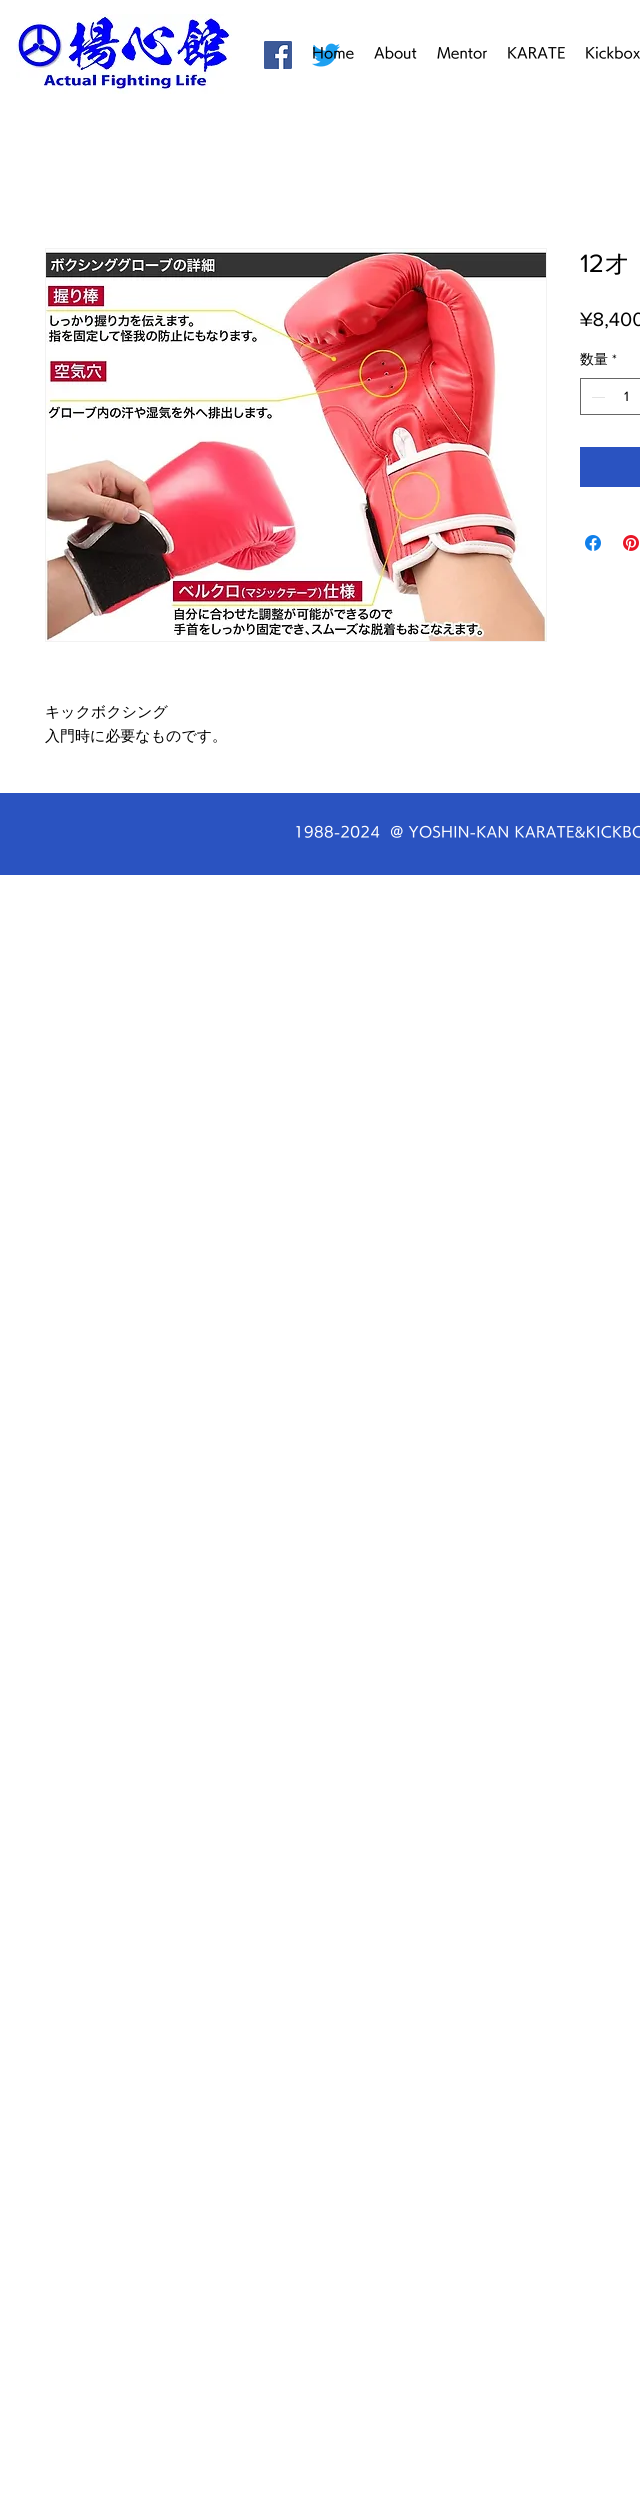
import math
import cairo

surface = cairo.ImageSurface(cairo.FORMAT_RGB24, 640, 2510)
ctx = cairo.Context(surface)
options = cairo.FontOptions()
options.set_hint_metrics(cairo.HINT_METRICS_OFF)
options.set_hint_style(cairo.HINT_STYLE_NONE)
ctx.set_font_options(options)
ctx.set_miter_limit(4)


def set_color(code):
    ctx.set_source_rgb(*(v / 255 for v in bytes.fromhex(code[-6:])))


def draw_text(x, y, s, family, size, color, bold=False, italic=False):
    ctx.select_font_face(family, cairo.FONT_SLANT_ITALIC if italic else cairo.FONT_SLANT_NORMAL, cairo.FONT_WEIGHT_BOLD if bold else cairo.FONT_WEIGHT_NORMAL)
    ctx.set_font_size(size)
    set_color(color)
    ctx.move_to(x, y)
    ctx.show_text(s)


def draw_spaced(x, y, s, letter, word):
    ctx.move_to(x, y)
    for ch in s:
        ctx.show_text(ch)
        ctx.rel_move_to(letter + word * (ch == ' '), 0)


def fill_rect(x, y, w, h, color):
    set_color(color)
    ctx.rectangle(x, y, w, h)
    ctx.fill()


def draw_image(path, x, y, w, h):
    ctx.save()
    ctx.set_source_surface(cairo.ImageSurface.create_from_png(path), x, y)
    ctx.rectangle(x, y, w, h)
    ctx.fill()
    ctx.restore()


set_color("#ffffff")
ctx.paint()
draw_image("assets/img1.png", 16, 14, 216, 80)
draw_image("assets/img2.png", 264, 41, 28, 28)
draw_image("assets/img3.png", 312, 43, 28, 24)
draw_text(312, 58, "Home", "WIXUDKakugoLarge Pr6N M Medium", 14, "#000000")
draw_text(374, 58, "About", "WIXUDKakugoLarge Pr6N M Medium", 14, "#000000")
draw_text(437, 58, "Mentor", "WIXUDKakugoLarge Pr6N M Medium", 14, "#000000")
draw_text(507, 58, "KARATE", "WIXUDKakugoLarge Pr6N M Medium", 14, "#000000")
draw_text(585, 58, "Kickbox", "WIXUDKakugoLarge Pr6N M Medium", 14, "#000000")
draw_text(580, 272, "12", "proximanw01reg", 26, "#000000")
draw_text(604, 272, "オ", "WenQuanYi Zen Hei Medium", 26, "#000000")
draw_text(580, 326, "¥8,400", "proximanw01reg", 20, "#000000")
draw_text(580, 364, "数量", "WenQuanYi Zen Hei Medium", 14, "#000000")
draw_text(612, 364, "*", "proximanw01reg", 14, "#000000")
ctx.rectangle(580.5, 378.5, 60, 36)
set_color("#666666")
ctx.set_line_width(1)
ctx.stroke()
fill_rect(592, 397, 13, 1, "#e3e3e3")
draw_text(624, 401, "1", "proximanw01reg", 14, "#000000")
fill_rect(580, 447, 60, 40, "#2a53c1")
draw_image("assets/img4.png", 585, 535, 16, 16)
draw_image("assets/img5.png", 623, 535, 16, 16)
ctx.rectangle(45.5, 248.5, 501, 393)
set_color("#f2f2f2")
ctx.stroke()
draw_image("assets/img6.png", 46, 249, 500, 392)
draw_text(45, 717, "キックボクシング", "WenQuanYi Zen Hei Medium", 15, "#000000")
draw_text(45, 741, "入門時に必要なものです。", "WenQuanYi Zen Hei Medium", 15, "#000000")
fill_rect(0, 793, 640, 82, "#2a53c1")
ctx.select_font_face("WIXUDKakugoLarge Pr6N M Medium")
ctx.set_font_size(14)
set_color("#ffffff")
draw_spaced(294, 837, "1988-2024  @ YOSHIN-KAN KARATE&KICKBO", 0.3, 0)
surface.write_to_png("output.png")
